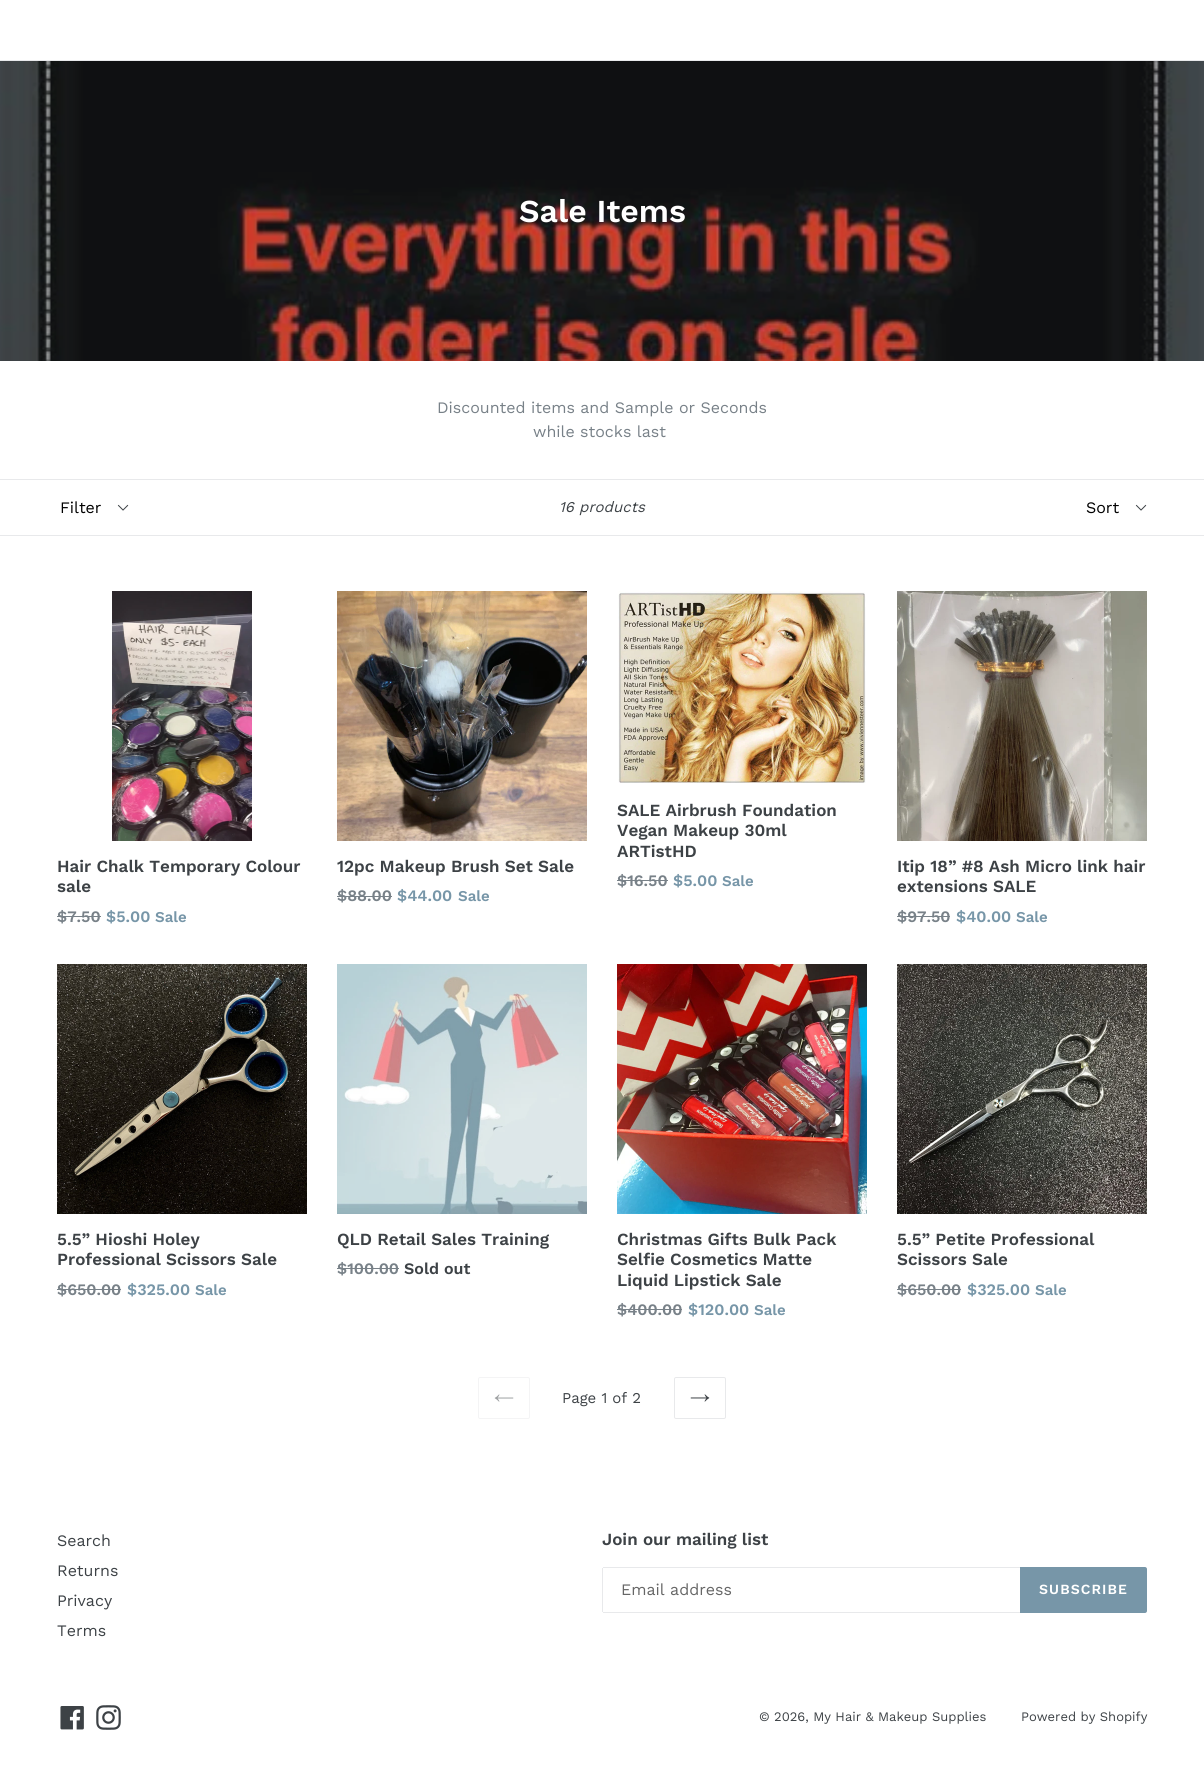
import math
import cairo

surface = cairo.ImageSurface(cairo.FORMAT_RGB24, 1204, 1785)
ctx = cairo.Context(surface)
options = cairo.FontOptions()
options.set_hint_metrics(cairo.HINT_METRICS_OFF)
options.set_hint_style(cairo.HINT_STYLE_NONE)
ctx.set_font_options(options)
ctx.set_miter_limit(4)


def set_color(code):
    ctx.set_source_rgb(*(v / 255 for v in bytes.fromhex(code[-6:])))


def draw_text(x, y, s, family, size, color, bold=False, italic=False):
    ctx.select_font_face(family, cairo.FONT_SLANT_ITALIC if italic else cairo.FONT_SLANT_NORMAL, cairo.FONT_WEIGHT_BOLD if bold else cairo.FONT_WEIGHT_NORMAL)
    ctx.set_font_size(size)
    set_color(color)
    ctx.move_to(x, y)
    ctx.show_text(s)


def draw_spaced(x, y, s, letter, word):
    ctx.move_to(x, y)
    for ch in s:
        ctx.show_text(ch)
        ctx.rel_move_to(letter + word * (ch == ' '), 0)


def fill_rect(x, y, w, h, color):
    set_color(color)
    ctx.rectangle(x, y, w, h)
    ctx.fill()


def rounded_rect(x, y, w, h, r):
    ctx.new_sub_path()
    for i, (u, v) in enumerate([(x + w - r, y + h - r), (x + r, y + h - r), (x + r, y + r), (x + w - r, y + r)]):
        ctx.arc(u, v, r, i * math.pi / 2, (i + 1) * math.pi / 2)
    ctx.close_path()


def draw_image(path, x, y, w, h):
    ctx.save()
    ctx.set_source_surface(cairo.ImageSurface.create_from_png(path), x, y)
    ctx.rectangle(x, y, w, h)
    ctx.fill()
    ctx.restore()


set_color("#ffffff")
ctx.paint()
fill_rect(0, 60, 1204, 1, "#e8e9eb")
draw_image("assets/img1.png", 0, 61, 1204, 300)
draw_text(519, 222, "Sale Items", "Work Sans SemiBold", 32, "#ffffff")
draw_text(437, 413, "Discounted items and Sample or Seconds", "Work Sans", 16, "#788188")
draw_text(533, 437, "while stocks last", "Work Sans", 16, "#788188")
fill_rect(0, 479, 1204, 1, "#e8e9eb")
fill_rect(0, 535, 1204, 1, "#e8e9eb")
draw_image("assets/img2.png", 117, 504, 12, 7)
draw_text(60, 513, "Filter", "Work Sans", 16, "#000000")
draw_text(559, 512, "16 products", "Work Sans", 15, "#3d4246", italic=True)
draw_image("assets/img2.png", 1135, 504, 12, 7)
draw_text(1086, 513, "Sort", "Work Sans", 16, "#000000")
draw_image("assets/img3.png", 112, 591, 140, 250)
draw_text(57, 872, "Hair Chalk Temporary Colour", "Work Sans SemiBold", 17, "#3d4246")
draw_text(57, 892, "sale", "Work Sans SemiBold", 17, "#3d4246")
draw_text(57, 922, "$7.50", "Work Sans SemiBold", 16, "#788188")
fill_rect(57, 916, 44, 1, "#788188")
draw_text(106, 922, "$5.00", "Work Sans SemiBold", 16, "#7796a8")
draw_text(155, 922, "Sale", "Work Sans SemiBold", 15, "#7796a8")
draw_image("assets/img4.png", 337, 591, 250, 250)
draw_text(337, 872, "12pc Makeup Brush Set Sale", "Work Sans SemiBold", 17, "#3d4246")
draw_text(337, 901, "$88.00", "Work Sans SemiBold", 16, "#788188")
fill_rect(337, 896, 55, 1, "#788188")
draw_text(397, 901, "$44.00", "Work Sans SemiBold", 16, "#7796a8")
draw_text(458, 901, "Sale", "Work Sans SemiBold", 15, "#7796a8")
draw_image("assets/img5.png", 618, 591, 248, 192)
draw_text(617, 816, "SALE Airbrush Foundation", "Work Sans SemiBold", 17, "#3d4246")
draw_text(617, 836, "Vegan Makeup 30ml", "Work Sans SemiBold", 17, "#3d4246")
draw_text(617, 857, "ARTistHD", "Work Sans SemiBold", 17, "#3d4246")
draw_text(617, 886, "$16.50", "Work Sans SemiBold", 16, "#788188")
fill_rect(617, 880, 51, 1, "#788188")
draw_text(673, 886, "$5.00", "Work Sans SemiBold", 16, "#7796a8")
draw_text(722, 886, "Sale", "Work Sans SemiBold", 15, "#7796a8")
draw_image("assets/img6.png", 897, 591, 250, 250)
draw_text(897, 872, "Itip 18” #8 Ash Micro link hair", "Work Sans SemiBold", 17, "#3d4246")
draw_text(897, 892, "extensions SALE", "Work Sans SemiBold", 17, "#3d4246")
draw_text(897, 922, "$97.50", "Work Sans SemiBold", 16, "#788188")
fill_rect(897, 916, 53, 1, "#788188")
draw_text(956, 922, "$40.00", "Work Sans SemiBold", 16, "#7796a8")
draw_text(1016, 922, "Sale", "Work Sans SemiBold", 15, "#7796a8")
draw_image("assets/img7.png", 57, 964, 250, 250)
draw_text(57, 1245, "5.5” Hioshi Holey", "Work Sans SemiBold", 17, "#3d4246")
draw_text(57, 1265, "Professional Scissors Sale", "Work Sans SemiBold", 17, "#3d4246")
draw_text(57, 1295, "$650.00", "Work Sans SemiBold", 16, "#788188")
fill_rect(57, 1289, 64, 1, "#788188")
draw_text(127, 1295, "$325.00", "Work Sans SemiBold", 16, "#7796a8")
draw_text(195, 1295, "Sale", "Work Sans SemiBold", 15, "#7796a8")
draw_image("assets/img8.png", 337, 964, 250, 250)
draw_text(337, 1245, "QLD Retail Sales Training", "Work Sans SemiBold", 17, "#3d4246")
draw_text(337, 1274, "$100.00", "Work Sans SemiBold", 16, "#788188")
fill_rect(337, 1268, 62, 1, "#788188")
draw_text(404, 1274, "Sold out", "Work Sans SemiBold", 16, "#3d4246")
draw_image("assets/img9.png", 617, 964, 250, 250)
draw_text(617, 1245, "Christmas Gifts Bulk Pack", "Work Sans SemiBold", 17, "#3d4246")
draw_text(617, 1265, "Selfie Cosmetics Matte", "Work Sans SemiBold", 17, "#3d4246")
draw_text(617, 1286, "Liquid Lipstick Sale", "Work Sans SemiBold", 17, "#3d4246")
draw_text(617, 1315, "$400.00", "Work Sans SemiBold", 16, "#788188")
fill_rect(617, 1309, 65, 1, "#788188")
draw_text(688, 1315, "$120.00", "Work Sans SemiBold", 16, "#7796a8")
draw_text(754, 1315, "Sale", "Work Sans SemiBold", 15, "#7796a8")
draw_image("assets/img10.png", 897, 964, 250, 250)
draw_text(897, 1245, "5.5” Petite Professional", "Work Sans SemiBold", 17, "#3d4246")
draw_text(897, 1265, "Scissors Sale", "Work Sans SemiBold", 17, "#3d4246")
draw_text(897, 1295, "$650.00", "Work Sans SemiBold", 16, "#788188")
fill_rect(897, 1289, 64, 1, "#788188")
draw_text(967, 1295, "$325.00", "Work Sans SemiBold", 16, "#7796a8")
draw_text(1035, 1295, "Sale", "Work Sans SemiBold", 15, "#7796a8")
rounded_rect(478.5, 1377.5, 51, 41, 1.5)
set_color("#f4f4f5")
ctx.set_line_width(1)
ctx.stroke()
draw_image("assets/img11.png", 494, 1394, 20, 8)
draw_text(562, 1403, "Page 1 of 2", "Work Sans", 15, "#3d4246")
rounded_rect(674.5, 1377.5, 51, 41, 1.5)
set_color("#e8e9eb")
ctx.stroke()
draw_image("assets/img12.png", 690, 1394, 20, 8)
draw_text(57, 1546, "Search", "Work Sans", 16, "#3d4246")
draw_text(57, 1576, "Returns", "Work Sans", 16, "#3d4246")
draw_text(57, 1606, "Privacy", "Work Sans", 16, "#3d4246")
draw_text(57, 1636, "Terms", "Work Sans", 16, "#3d4246")
draw_text(602, 1545, "Join our mailing list", "Work Sans SemiBold", 17, "#3d4246")
fill_rect(603, 1567, 417, 1, "#e8e9eb")
fill_rect(603, 1612, 417, 1, "#e8e9eb")
fill_rect(602, 1568, 1, 44, "#e8e9eb")
draw_text(621, 1595, "Email address", "Work Sans", 16, "#666666")
set_color("#7796a8")
ctx.new_path()
ctx.move_to(1020, 1567)
ctx.line_to(1145, 1567)
ctx.curve_to(1146, 1567, 1147, 1568, 1147, 1569)
ctx.line_to(1147, 1611)
ctx.curve_to(1147, 1612, 1146, 1613, 1145, 1613)
ctx.line_to(1020, 1613)
ctx.close_path()
ctx.fill()
ctx.select_font_face("Work Sans SemiBold")
ctx.set_font_size(14)
set_color("#ffffff")
draw_spaced(1039, 1594, "SUBSCRIBE", 1.1, 0)
draw_image("assets/img13.png", 60, 1706, 24, 24)
draw_image("assets/img14.png", 96, 1705, 25, 25)
draw_text(759, 1721, "© 2026, My Hair & Makeup Supplies", "Work Sans", 13, "#3d4246")
draw_text(1021, 1721, "Powered by Shopify", "Work Sans", 13, "#3d4246")
surface.write_to_png("output.png")
